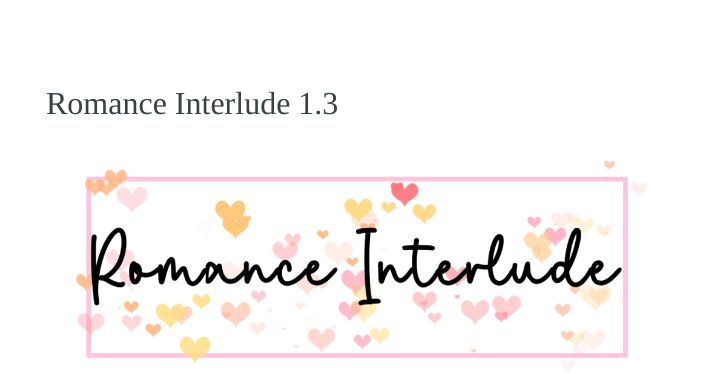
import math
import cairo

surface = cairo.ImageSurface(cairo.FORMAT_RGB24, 711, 374)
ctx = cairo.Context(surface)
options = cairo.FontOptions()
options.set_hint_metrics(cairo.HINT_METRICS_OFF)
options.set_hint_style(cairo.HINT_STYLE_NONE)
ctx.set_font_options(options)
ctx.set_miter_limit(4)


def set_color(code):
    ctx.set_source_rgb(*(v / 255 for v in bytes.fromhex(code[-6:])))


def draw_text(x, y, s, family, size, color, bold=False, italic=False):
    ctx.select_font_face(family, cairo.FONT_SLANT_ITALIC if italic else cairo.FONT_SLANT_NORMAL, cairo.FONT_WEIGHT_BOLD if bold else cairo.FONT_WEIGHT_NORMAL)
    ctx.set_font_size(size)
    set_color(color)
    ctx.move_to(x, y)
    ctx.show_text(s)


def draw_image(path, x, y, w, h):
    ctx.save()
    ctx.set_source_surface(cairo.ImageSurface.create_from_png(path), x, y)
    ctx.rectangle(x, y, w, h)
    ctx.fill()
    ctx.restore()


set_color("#ffffff")
ctx.paint()
draw_text(46, 114, "Romance Interlude 1.3", "Liberation Serif", 32, "#384143")
draw_image("assets/img1.png", 75, 160, 572, 212)
surface.write_to_png("output.png")
